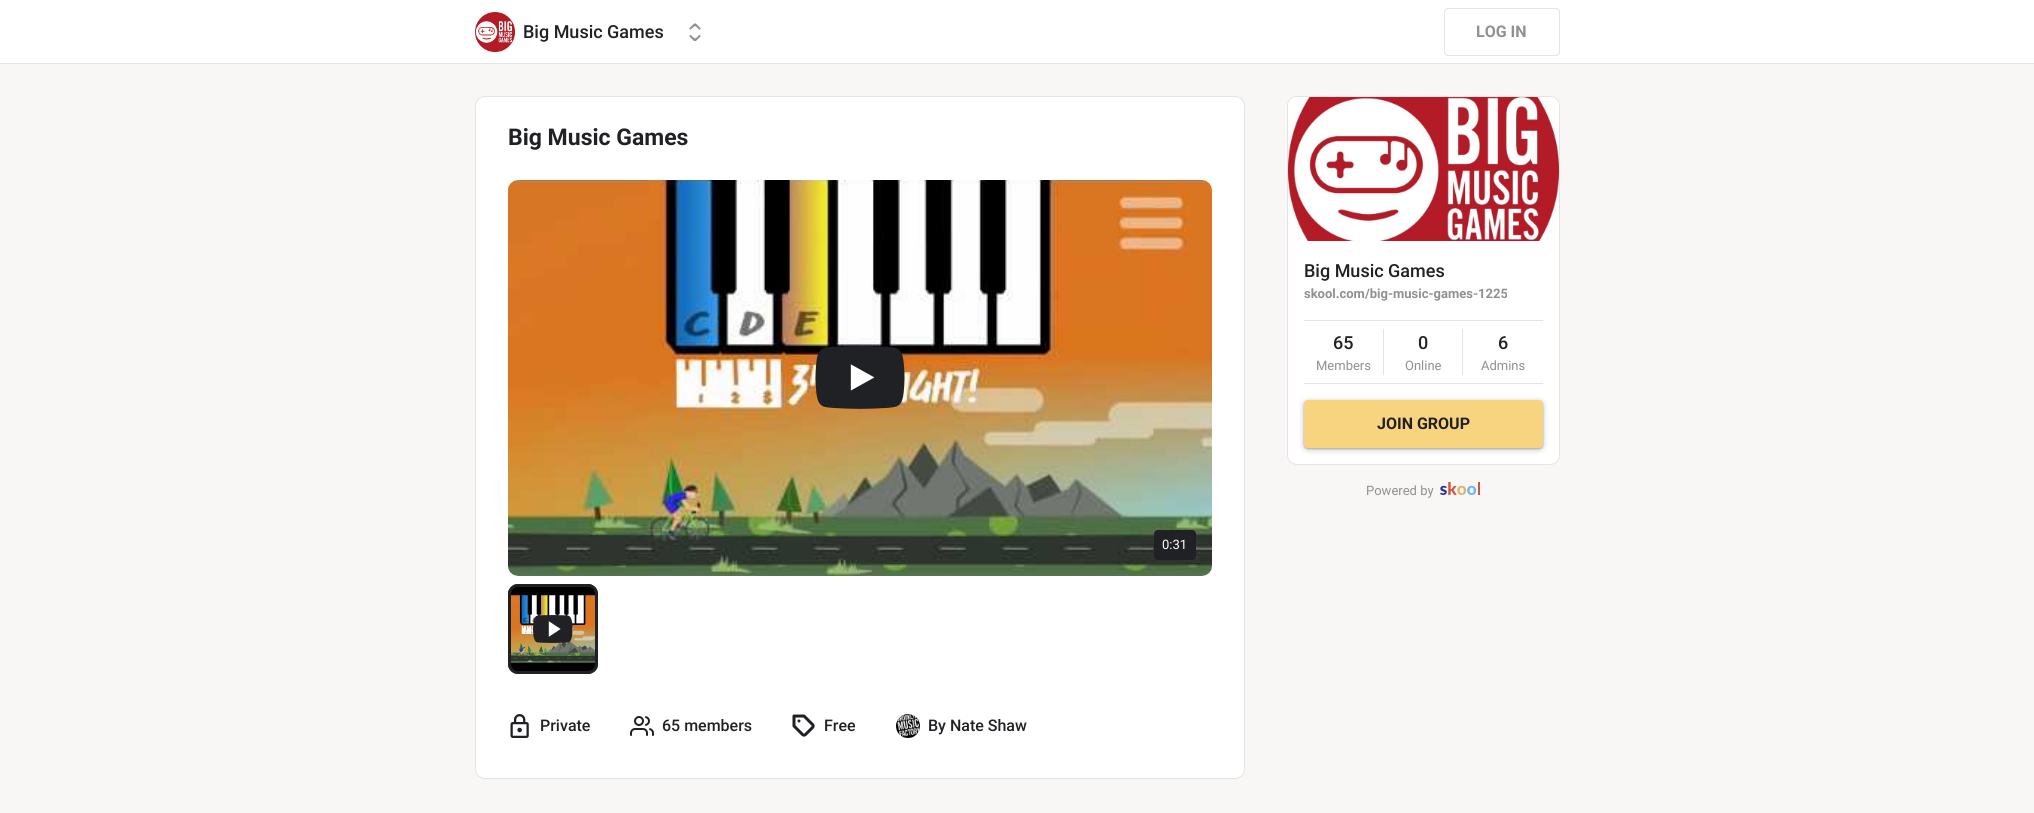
import math
import cairo

surface = cairo.ImageSurface(cairo.FORMAT_RGB24, 2034, 813)
ctx = cairo.Context(surface)
options = cairo.FontOptions()
options.set_hint_metrics(cairo.HINT_METRICS_OFF)
options.set_hint_style(cairo.HINT_STYLE_NONE)
ctx.set_font_options(options)
ctx.set_miter_limit(4)


def set_color(code):
    ctx.set_source_rgb(*(v / 255 for v in bytes.fromhex(code[-6:])))


def draw_text(x, y, s, family, size, color, bold=False, italic=False):
    ctx.select_font_face(family, cairo.FONT_SLANT_ITALIC if italic else cairo.FONT_SLANT_NORMAL, cairo.FONT_WEIGHT_BOLD if bold else cairo.FONT_WEIGHT_NORMAL)
    ctx.set_font_size(size)
    set_color(color)
    ctx.move_to(x, y)
    ctx.show_text(s)


def fill_rect(x, y, w, h, color):
    set_color(color)
    ctx.rectangle(x, y, w, h)
    ctx.fill()


def rounded_rect(x, y, w, h, r):
    ctx.new_sub_path()
    for i, (u, v) in enumerate([(x + w - r, y + h - r), (x + r, y + h - r), (x + r, y + r), (x + w - r, y + r)]):
        ctx.arc(u, v, r, i * math.pi / 2, (i + 1) * math.pi / 2)
    ctx.close_path()


def draw_shadow(x, y, w, h, r, blur, alpha):
    ctx.push_group_with_content(cairo.CONTENT_ALPHA)
    ctx.set_operator(cairo.OPERATOR_SOURCE)
    for i in range(15, -16, -2):
        e = blur * i / 6
        if min(w, h) + 2 * e > 0:
            ctx.set_source_rgba(0, 0, 0, alpha * math.erfc((i - 1) / 8.5) / 2)
            rounded_rect(x - e, y - e, w + 2 * e, h + 2 * e, max(0, min(r + e + blur * .6, min(w, h) / 2 + e)))
            ctx.fill()
    ctx.mask(ctx.pop_group())


def draw_image(path, x, y, w, h):
    ctx.save()
    ctx.set_source_surface(cairo.ImageSurface.create_from_png(path), x, y)
    ctx.rectangle(x, y, w, h)
    ctx.fill()
    ctx.restore()


set_color("#f8f7f5")
ctx.paint()
fill_rect(0, 0, 2034, 63, "#ffffff")
fill_rect(0, 63, 2034, 1, "#e4e4e4")
draw_image("assets/img1.png", 475, 12, 40, 40)
draw_text(523, 38, "Big Music Games", "Roboto Medium", 18, "#202124")
draw_image("assets/img2.png", 689, 23, 12, 19)
rounded_rect(1444.5, 8.5, 115, 47, 3.5)
set_color("#e4e4e4")
ctx.set_line_width(1)
ctx.stroke()
draw_text(1476, 37, "LOG IN", "Roboto", 16, "#909090", bold=True)
set_color("#ffffff")
rounded_rect(475.5, 96.5, 769, 682, 9.5)
ctx.fill_preserve()
set_color("#e4e4e4")
ctx.stroke()
draw_text(508, 145, "Big Music Games", "Roboto", 23, "#202124", bold=True)
draw_image("assets/img3.png", 508, 180, 704, 396)
draw_image("assets/img4.png", 815, 346, 90, 63)
rounded_rect(1154, 530, 42, 30, 4)
ctx.fill()
draw_text(1162, 549, "0:31", "Roboto", 13, "#ffffff")
draw_image("assets/img5.png", 508, 584, 90, 90)
draw_image("assets/img6.png", 533, 615, 40, 28)
rounded_rect(509.5, 585.5, 87, 87, 8.5)
set_color("#202124")
ctx.set_line_width(3)
ctx.stroke()
draw_image("assets/img7.png", 510, 714, 19, 24)
draw_text(540, 731, "Private", "Roboto Medium", 16, "#202124")
draw_image("assets/img8.png", 630, 716, 24, 20)
draw_text(662, 731, "65 members", "Roboto Medium", 16, "#202124")
draw_image("assets/img9.png", 792, 714, 23, 23)
draw_text(824, 731, "Free", "Roboto Medium", 16, "#202124")
draw_image("assets/img10.png", 896, 714, 24, 24)
draw_text(928, 731, "By Nate Shaw", "Roboto Medium", 16, "#202124")
set_color("#ffffff")
rounded_rect(1287.5, 96.5, 272, 368, 9.5)
ctx.fill_preserve()
set_color("#e4e4e4")
ctx.set_line_width(1)
ctx.stroke()
draw_image("assets/img11.png", 1288, 97, 271, 144)
draw_text(1304, 277, "Big Music Games", "Roboto Medium", 18, "#202124")
draw_text(1304, 298, "skool.com/big-music-games-1225", "Roboto", 13, "#909090", bold=True)
fill_rect(1304, 320, 239, 1, "#e4e4e4")
fill_rect(1304, 383, 239, 1, "#e4e4e4")
draw_text(1333, 349, "65", "Roboto Medium", 18, "#202124")
draw_text(1316, 370, "Members", "Roboto", 13, "#909090")
fill_rect(1462, 329, 1, 46, "#e4e4e4")
fill_rect(1383, 329, 1, 46, "#e4e4e4")
draw_text(1418, 349, "0", "Roboto Medium", 18, "#202124")
draw_text(1405, 370, "Online", "Roboto", 13, "#909090")
draw_text(1498, 349, "6", "Roboto Medium", 18, "#202124")
draw_text(1481, 370, "Admins", "Roboto", 13, "#909090")
set_color("#000000")
draw_shadow(1304, 401, 239, 48, 4, 4, 0.1)
set_color("#3c4043")
draw_shadow(1304, 402, 239, 48, 4, 3, 0.15)
draw_shadow(1304, 401, 239, 48, 4, 1, 0.32)
set_color("#f8d481")
rounded_rect(1304, 400, 239, 48, 4)
ctx.fill()
draw_text(1377, 429, "JOIN GROUP", "Roboto", 16, "#202124", bold=True)
draw_text(1366, 495, "Powered by", "Roboto", 13, "#909090")
draw_image("assets/img12.png", 1440, 482, 40, 13)
surface.write_to_png("output.png")
